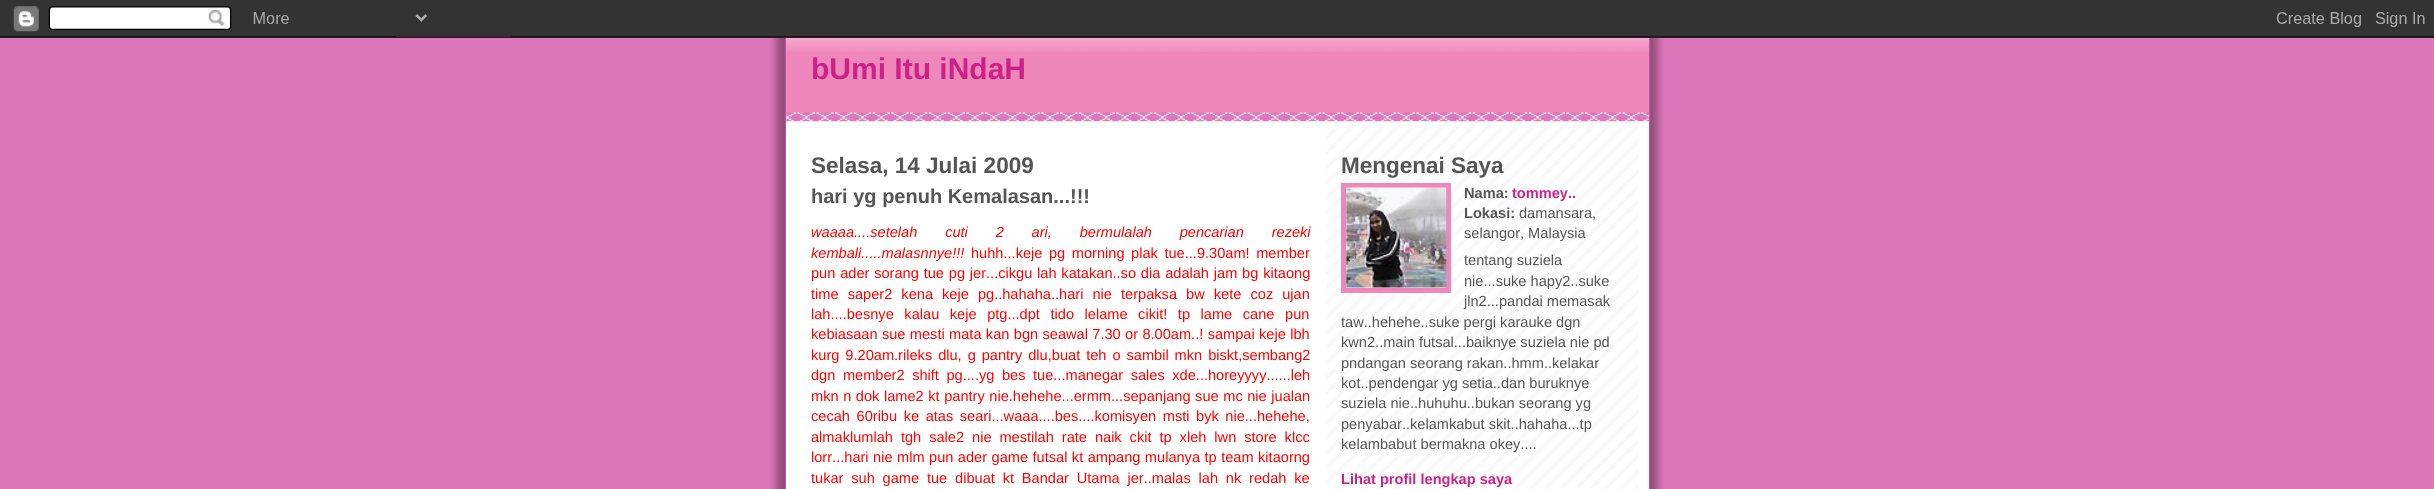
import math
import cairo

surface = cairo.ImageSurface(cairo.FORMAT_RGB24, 2434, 489)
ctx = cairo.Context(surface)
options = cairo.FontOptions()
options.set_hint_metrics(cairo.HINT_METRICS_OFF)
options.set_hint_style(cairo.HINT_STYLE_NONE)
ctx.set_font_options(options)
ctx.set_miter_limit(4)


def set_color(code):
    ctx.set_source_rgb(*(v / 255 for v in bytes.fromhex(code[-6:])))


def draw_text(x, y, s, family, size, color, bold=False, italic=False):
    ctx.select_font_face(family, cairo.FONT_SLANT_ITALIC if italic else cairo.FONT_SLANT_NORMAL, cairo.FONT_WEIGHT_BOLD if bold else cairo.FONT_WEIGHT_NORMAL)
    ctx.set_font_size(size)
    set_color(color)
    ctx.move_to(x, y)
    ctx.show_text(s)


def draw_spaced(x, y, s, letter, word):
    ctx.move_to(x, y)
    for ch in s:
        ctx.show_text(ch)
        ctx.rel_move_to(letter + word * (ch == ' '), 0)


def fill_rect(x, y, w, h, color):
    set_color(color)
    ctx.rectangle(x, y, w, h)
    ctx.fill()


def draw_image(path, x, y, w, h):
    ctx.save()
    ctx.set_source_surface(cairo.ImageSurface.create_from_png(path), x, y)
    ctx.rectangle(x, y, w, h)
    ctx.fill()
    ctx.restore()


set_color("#dd77bb")
ctx.paint()
draw_image("assets/img1.png", 770, 36, 894, 453)
fill_rect(786, 36, 863, 85, "#ee88bb")
draw_image("assets/img5.png", 786, 36, 863, 16)
draw_image("assets/img2.png", 0, 0, 2434, 38)
fill_rect(786, 121, 863, 368, "#ffffff")
draw_image("assets/img3.png", 1326, 121, 323, 368)
draw_image("assets/img4.png", 786, 112, 863, 10)
draw_text(811, 79, "bUmi Itu iNdaH", "Liberation Sans", 30, "#cc2288", bold=True)
draw_text(811, 173, "Selasa, 14 Julai 2009", "Liberation Sans", 22.5, "#555555", bold=True)
draw_text(811, 203, "hari yg penuh Kemalasan...!!!", "Liberation Sans", 20, "#555555", bold=True)
ctx.select_font_face("Liberation Sans", cairo.FONT_SLANT_ITALIC)
ctx.set_font_size(14.6)
set_color("#ff0000")
draw_spaced(811, 237, "waaaa....setelah cuti 2 ari, bermulalah pencarian rezeki", 0, 23.75)
draw_text(811, 258, "kembali.....malasnnye!!!", "Liberation Sans", 14.6, "#ff0000", italic=True)
ctx.select_font_face("Liberation Sans")
draw_spaced(971, 258, "huhh...keje pg morning plak tue...9.30am! member", 0, 2.5)
draw_spaced(811, 278, "pun ader sorang tue pg jer...cikgu lah katakan..so dia adalah jam bg kitaong", 0, 0.75)
draw_spaced(811, 299, "time saper2 kena keje pg..hahaha..hari nie terpaksa bw kete coz ujan", 0, 5)
draw_spaced(811, 319, "lah....besnye kalau keje ptg...dpt tido lelame cikit! tp lame cane pun", 0, 6.5)
draw_spaced(811, 339, "kebiasaan sue mesti mata kan bgn seawal 7.30 or 8.00am..! sampai keje lbh", 0, 0.3)
draw_spaced(811, 360, "kurg 9.20am.rileks dlu, g pantry dlu,buat teh o sambil mkn biskt,sembang2", 0, 1.9)
draw_spaced(811, 380, "dgn member2 shift pg....yg bes tue...manegar sales xde...horeyyyy......leh", 0, 3.5)
draw_spaced(811, 401, "mkn n dok lame2 kt pantry nie.hehehe...ermm...sepanjang sue mc nie jualan", 0, 0.5)
draw_spaced(811, 421, "cecah 60ribu ke atas seari...waaa....bes....komisyen msti byk nie...hehehe,", 0, 2.5)
draw_spaced(811, 442, "almaklumlah tgh sale2 nie mestilah rate naik ckit tp xleh lwn store klcc", 0, 3.9)
draw_spaced(811, 462, "lorr...hari nie mlm pun ader game futsal kt ampang mulanya tp team kitaorng", 0, 0.4)
draw_spaced(811, 483, "tukar suh game tue dibuat kt Bandar Utama jer..malas lah nk redah ke", 0, 3.75)
draw_text(1341, 173, "Mengenai Saya", "Liberation Sans", 22.5, "#555555", bold=True)
ctx.rectangle(1343.5, 185.5, 105, 105)
set_color("#ee88bb")
ctx.set_line_width(5)
ctx.stroke()
draw_image("assets/img6.png", 1346, 187, 101, 101)
draw_text(1464, 198, "Nama:", "Liberation Sans", 14.6, "#555555", bold=True)
draw_text(1512, 198, "tommey..", "Liberation Sans", 14.6, "#cc2288", bold=True)
draw_text(1464, 218, "Lokasi:", "Liberation Sans", 14.6, "#555555", bold=True)
draw_text(1519, 218, "damansara,", "Liberation Sans", 14.6, "#555555")
draw_text(1464, 238, "selangor, Malaysia", "Liberation Sans", 14.6, "#555555")
draw_text(1464, 265, "tentang suziela", "Liberation Sans", 14.6, "#555555")
draw_text(1464, 286, "nie...suke hapy2..suke", "Liberation Sans", 14.6, "#555555")
draw_text(1464, 306, "jln2...pandai memasak", "Liberation Sans", 14.6, "#555555")
draw_text(1341, 327, "taw..hehehe..suke pergi karauke dgn", "Liberation Sans", 14.6, "#555555")
draw_text(1341, 347, "kwn2..main futsal...baiknye suziela nie pd", "Liberation Sans", 14.6, "#555555")
draw_text(1341, 368, "pndangan seorang rakan..hmm..kelakar", "Liberation Sans", 14.6, "#555555")
draw_text(1341, 388, "kot..pendengar yg setia..dan buruknye", "Liberation Sans", 14.6, "#555555")
draw_text(1341, 408, "suziela nie..huhuhu..bukan seorang yg", "Liberation Sans", 14.6, "#555555")
draw_text(1341, 429, "penyabar..kelamkabut skit..hahaha...tp", "Liberation Sans", 14.6, "#555555")
draw_text(1341, 449, "kelambabut bermakna okey....", "Liberation Sans", 14.6, "#555555")
draw_text(1341, 484, "Lihat profil lengkap saya", "Liberation Sans", 14.6, "#cc2288", bold=True)
surface.write_to_png("output.png")
